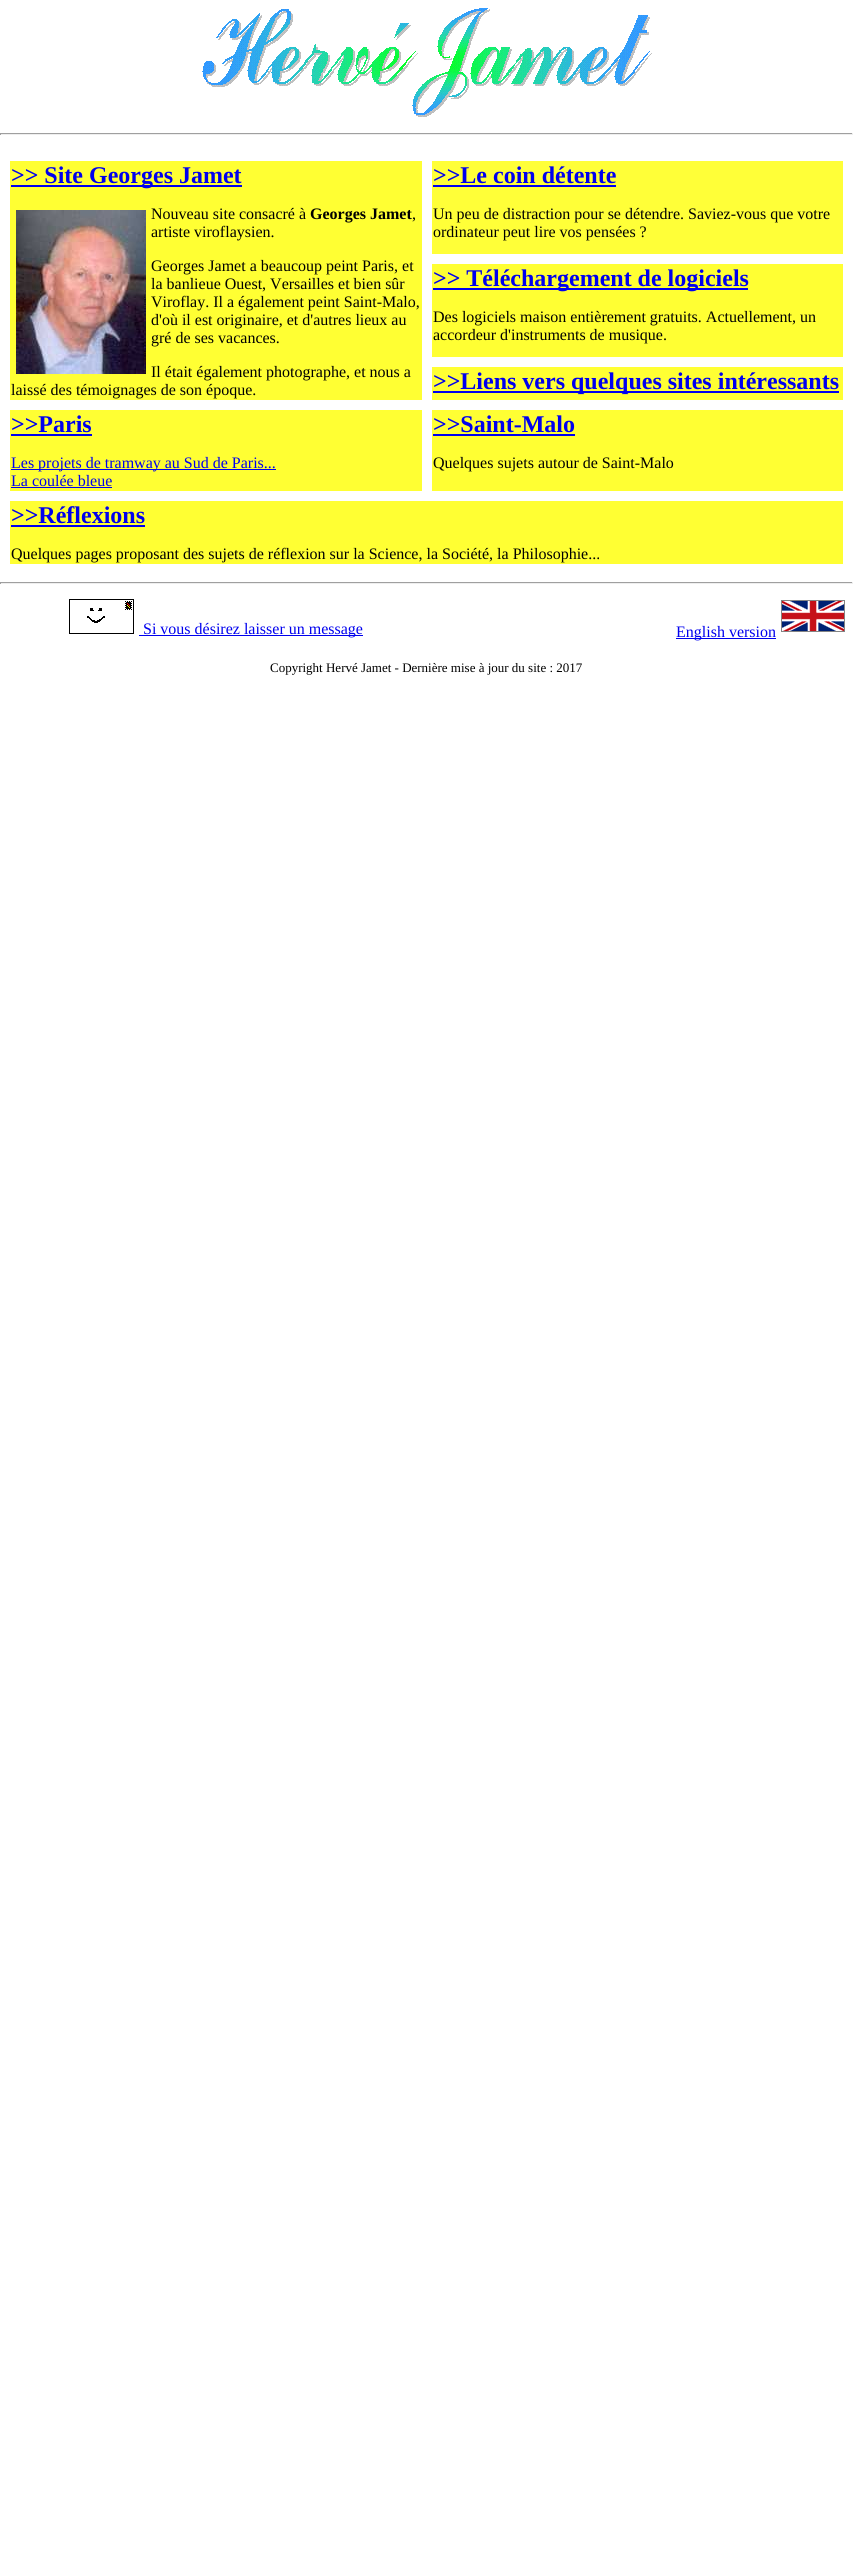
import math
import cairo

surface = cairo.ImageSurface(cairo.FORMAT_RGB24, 853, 2571)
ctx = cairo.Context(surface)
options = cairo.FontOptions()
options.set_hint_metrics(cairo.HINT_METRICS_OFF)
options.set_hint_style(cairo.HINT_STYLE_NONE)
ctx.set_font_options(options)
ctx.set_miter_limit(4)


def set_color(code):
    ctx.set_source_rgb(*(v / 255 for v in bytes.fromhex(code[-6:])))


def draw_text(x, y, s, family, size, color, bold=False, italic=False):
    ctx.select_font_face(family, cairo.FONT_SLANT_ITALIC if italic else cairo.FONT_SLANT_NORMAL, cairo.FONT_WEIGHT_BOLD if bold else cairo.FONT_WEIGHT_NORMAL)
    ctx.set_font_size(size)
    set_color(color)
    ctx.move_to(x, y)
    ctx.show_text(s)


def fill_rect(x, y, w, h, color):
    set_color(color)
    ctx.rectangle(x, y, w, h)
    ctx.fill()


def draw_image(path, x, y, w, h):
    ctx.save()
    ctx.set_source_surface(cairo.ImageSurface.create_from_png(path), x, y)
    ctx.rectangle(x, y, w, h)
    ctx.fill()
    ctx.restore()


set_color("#ffffff")
ctx.paint()
draw_image("assets/img1.png", 202, 8, 450, 109)
fill_rect(0, 133, 853, 1, "#9f9f9f")
fill_rect(852, 133, 1, 2, "#eeeeee")
fill_rect(0, 134, 853, 1, "#eeeeee")
fill_rect(0, 133, 1, 2, "#9f9f9f")
fill_rect(10, 161, 412, 239, "#ffff33")
fill_rect(11, 185, 231, 2, "#0000ee")
draw_text(11, 183, ">> Site Georges Jamet", "Liberation Serif", 24, "#0000ee", bold=True)
draw_image("assets/img2.png", 16, 210, 130, 164)
draw_text(151, 219, "Nouveau site consacré à", "Liberation Serif", 16, "#000000")
draw_text(310, 219, "Georges Jamet", "Liberation Serif", 16, "#000000", bold=True)
draw_text(412, 219, ",", "Liberation Serif", 16, "#000000")
draw_text(151, 237, "artiste viroflaysien.", "Liberation Serif", 16, "#000000")
draw_text(151, 271, "Georges Jamet a beaucoup peint Paris, et", "Liberation Serif", 16, "#000000")
draw_text(151, 289, "la banlieue Ouest, Versailles et bien sûr", "Liberation Serif", 16, "#000000")
draw_text(151, 307, "Viroflay. Il a également peint Saint-Malo,", "Liberation Serif", 16, "#000000")
draw_text(151, 325, "d'où il est originaire, et d'autres lieux au", "Liberation Serif", 16, "#000000")
draw_text(151, 343, "gré de ses vacances.", "Liberation Serif", 16, "#000000")
draw_text(151, 377, "Il était également photographe, et nous a", "Liberation Serif", 16, "#000000")
draw_text(11, 395, "laissé des témoignages de son époque.", "Liberation Serif", 16, "#000000")
fill_rect(432, 161, 411, 93, "#ffff38")
draw_text(433, 183, ">>Le coin détente", "Liberation Serif", 24, "#0000ee", bold=True)
fill_rect(433, 185, 183, 2, "#0000ee")
draw_text(433, 219, "Un peu de distraction pour se détendre. Saviez-vous que votre", "Liberation Serif", 16, "#000000")
draw_text(433, 237, "ordinateur peut lire vos pensées ?", "Liberation Serif", 16, "#000000")
fill_rect(432, 264, 411, 93, "#ffff33")
fill_rect(433, 288, 315, 2, "#0000ee")
draw_text(433, 286, ">> Téléchargement de logiciels", "Liberation Serif", 24, "#0000ee", bold=True)
draw_text(433, 322, "Des logiciels maison entièrement gratuits. Actuellement, un", "Liberation Serif", 16, "#000000")
draw_text(433, 340, "accordeur d'instruments de musique.", "Liberation Serif", 16, "#000000")
fill_rect(432, 367, 411, 33, "#ffff33")
fill_rect(433, 391, 406, 2, "#0000ee")
draw_text(433, 389, ">>Liens vers quelques sites intéressants", "Liberation Serif", 24, "#0000ee", bold=True)
fill_rect(10, 410, 412, 81, "#ffff33")
draw_text(11, 432, ">>Paris", "Liberation Serif", 24, "#0000ee", bold=True)
fill_rect(11, 434, 81, 2, "#0000ee")
fill_rect(11, 469, 265, 1, "#0000ee")
draw_text(11, 468, "Les projets de tramway au Sud de Paris...", "Liberation Serif", 16, "#0000ee")
draw_text(11, 486, "La coulée bleue", "Liberation Serif", 16, "#0000ee")
fill_rect(11, 487, 101, 1, "#0000ee")
fill_rect(432, 410, 411, 81, "#ffff33")
draw_text(433, 432, ">>Saint-Malo", "Liberation Serif", 24, "#0000ee", bold=True)
fill_rect(433, 434, 142, 2, "#0000ee")
draw_text(433, 468, "Quelques sujets autour de Saint-Malo", "Liberation Serif", 16, "#000000")
fill_rect(10, 501, 833, 63, "#ffff33")
draw_text(11, 523, ">>Réflexions", "Liberation Serif", 24, "#0000ee", bold=True)
fill_rect(11, 525, 134, 2, "#0000ee")
draw_text(11, 559, "Quelques pages proposant des sujets de réflexion sur la Science, la Société, la Philosophie...", "Liberation Serif", 16, "#000000")
fill_rect(0, 582, 853, 1, "#9f9f9f")
fill_rect(852, 582, 1, 2, "#eeeeee")
fill_rect(0, 583, 853, 1, "#eeeeee")
fill_rect(0, 582, 1, 2, "#9f9f9f")
draw_image("assets/img3.png", 69, 599, 65, 35)
fill_rect(139, 635, 224, 1, "#0000ee")
draw_text(143, 634, "Si vous désirez laisser un message", "Liberation Serif", 16, "#0000ee")
fill_rect(676, 638, 100, 1, "#0000ee")
draw_text(676, 637, "English version", "Liberation Serif", 16, "#0000ee")
draw_image("assets/img4.png", 781, 600, 64, 32)
draw_text(270, 672, "Copyright Hervé Jamet - Dernière mise à jour du site : 2017", "Liberation Serif", 13, "#000000")
surface.write_to_png("output.png")
